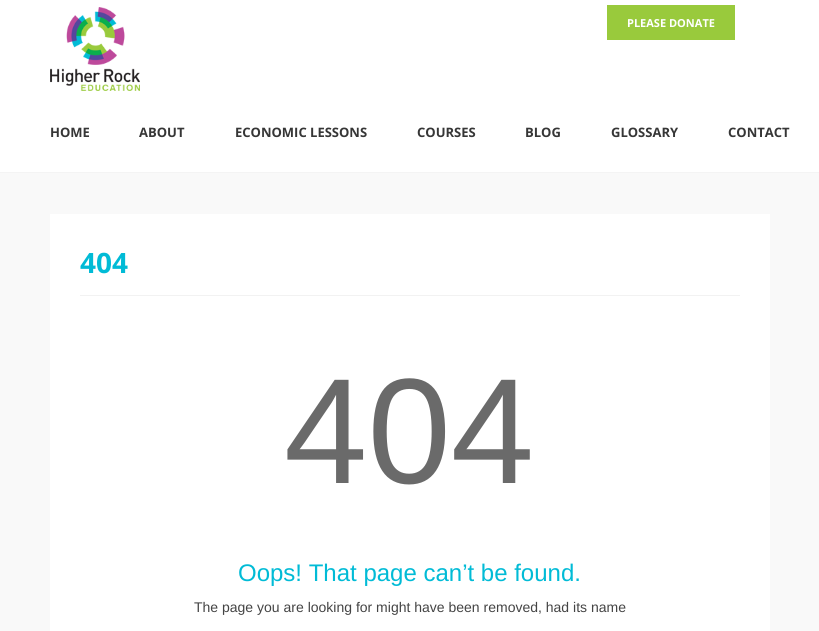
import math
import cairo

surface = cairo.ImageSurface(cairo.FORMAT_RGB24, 819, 631)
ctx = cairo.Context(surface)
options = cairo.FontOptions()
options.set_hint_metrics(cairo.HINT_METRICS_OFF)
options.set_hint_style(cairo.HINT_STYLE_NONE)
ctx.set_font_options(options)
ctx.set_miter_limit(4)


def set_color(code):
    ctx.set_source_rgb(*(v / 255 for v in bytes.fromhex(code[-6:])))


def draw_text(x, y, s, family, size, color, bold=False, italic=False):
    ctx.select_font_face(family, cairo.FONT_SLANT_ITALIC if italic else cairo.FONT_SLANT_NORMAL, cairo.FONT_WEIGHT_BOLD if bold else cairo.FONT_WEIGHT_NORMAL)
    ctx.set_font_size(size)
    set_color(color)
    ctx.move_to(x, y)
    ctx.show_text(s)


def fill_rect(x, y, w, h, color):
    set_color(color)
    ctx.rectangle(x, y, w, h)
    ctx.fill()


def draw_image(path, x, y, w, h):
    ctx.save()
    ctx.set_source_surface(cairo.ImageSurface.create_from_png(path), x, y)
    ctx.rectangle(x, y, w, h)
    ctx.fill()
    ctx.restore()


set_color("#ffffff")
ctx.paint()
draw_image("assets/img1.png", 50, 7, 90, 84)
fill_rect(607, 5, 128, 35, "#99ca3c")
draw_text(627, 27, "PLEASE DONATE", "Open Sans", 11, "#ffffff", bold=True)
draw_text(50, 137, "HOME", "Open Sans", 13, "#363636", bold=True)
draw_text(139, 137, "ABOUT", "Open Sans", 13, "#363636", bold=True)
draw_text(235, 137, "ECONOMIC LESSONS", "Open Sans", 13, "#363636", bold=True)
draw_text(417, 137, "COURSES", "Open Sans", 13, "#363636", bold=True)
draw_text(525, 137, "BLOG", "Open Sans", 13, "#363636", bold=True)
draw_text(611, 137, "GLOSSARY", "Open Sans", 13, "#363636", bold=True)
draw_text(728, 137, "CONTACT", "Open Sans", 13, "#363636", bold=True)
fill_rect(0, 173, 819, 458, "#f9f9f9")
fill_rect(0, 172, 819, 1, "#f4f4f4")
fill_rect(50, 214, 720, 417, "#ffffff")
fill_rect(80, 295, 660, 1, "#f2f2f2")
draw_text(80, 273, "404", "Open Sans", 28, "#01bbd6", bold=True)
draw_text(284, 483, "404", "Liberation Sans", 150, "#6a6a6a")
draw_text(238, 581, "Oops! That page can’t be found.", "Liberation Sans", 24, "#01bbd6")
draw_text(194, 612, "The page you are looking for might have been removed, had its name", "Liberation Sans", 14, "#444444")
surface.write_to_png("output.png")
